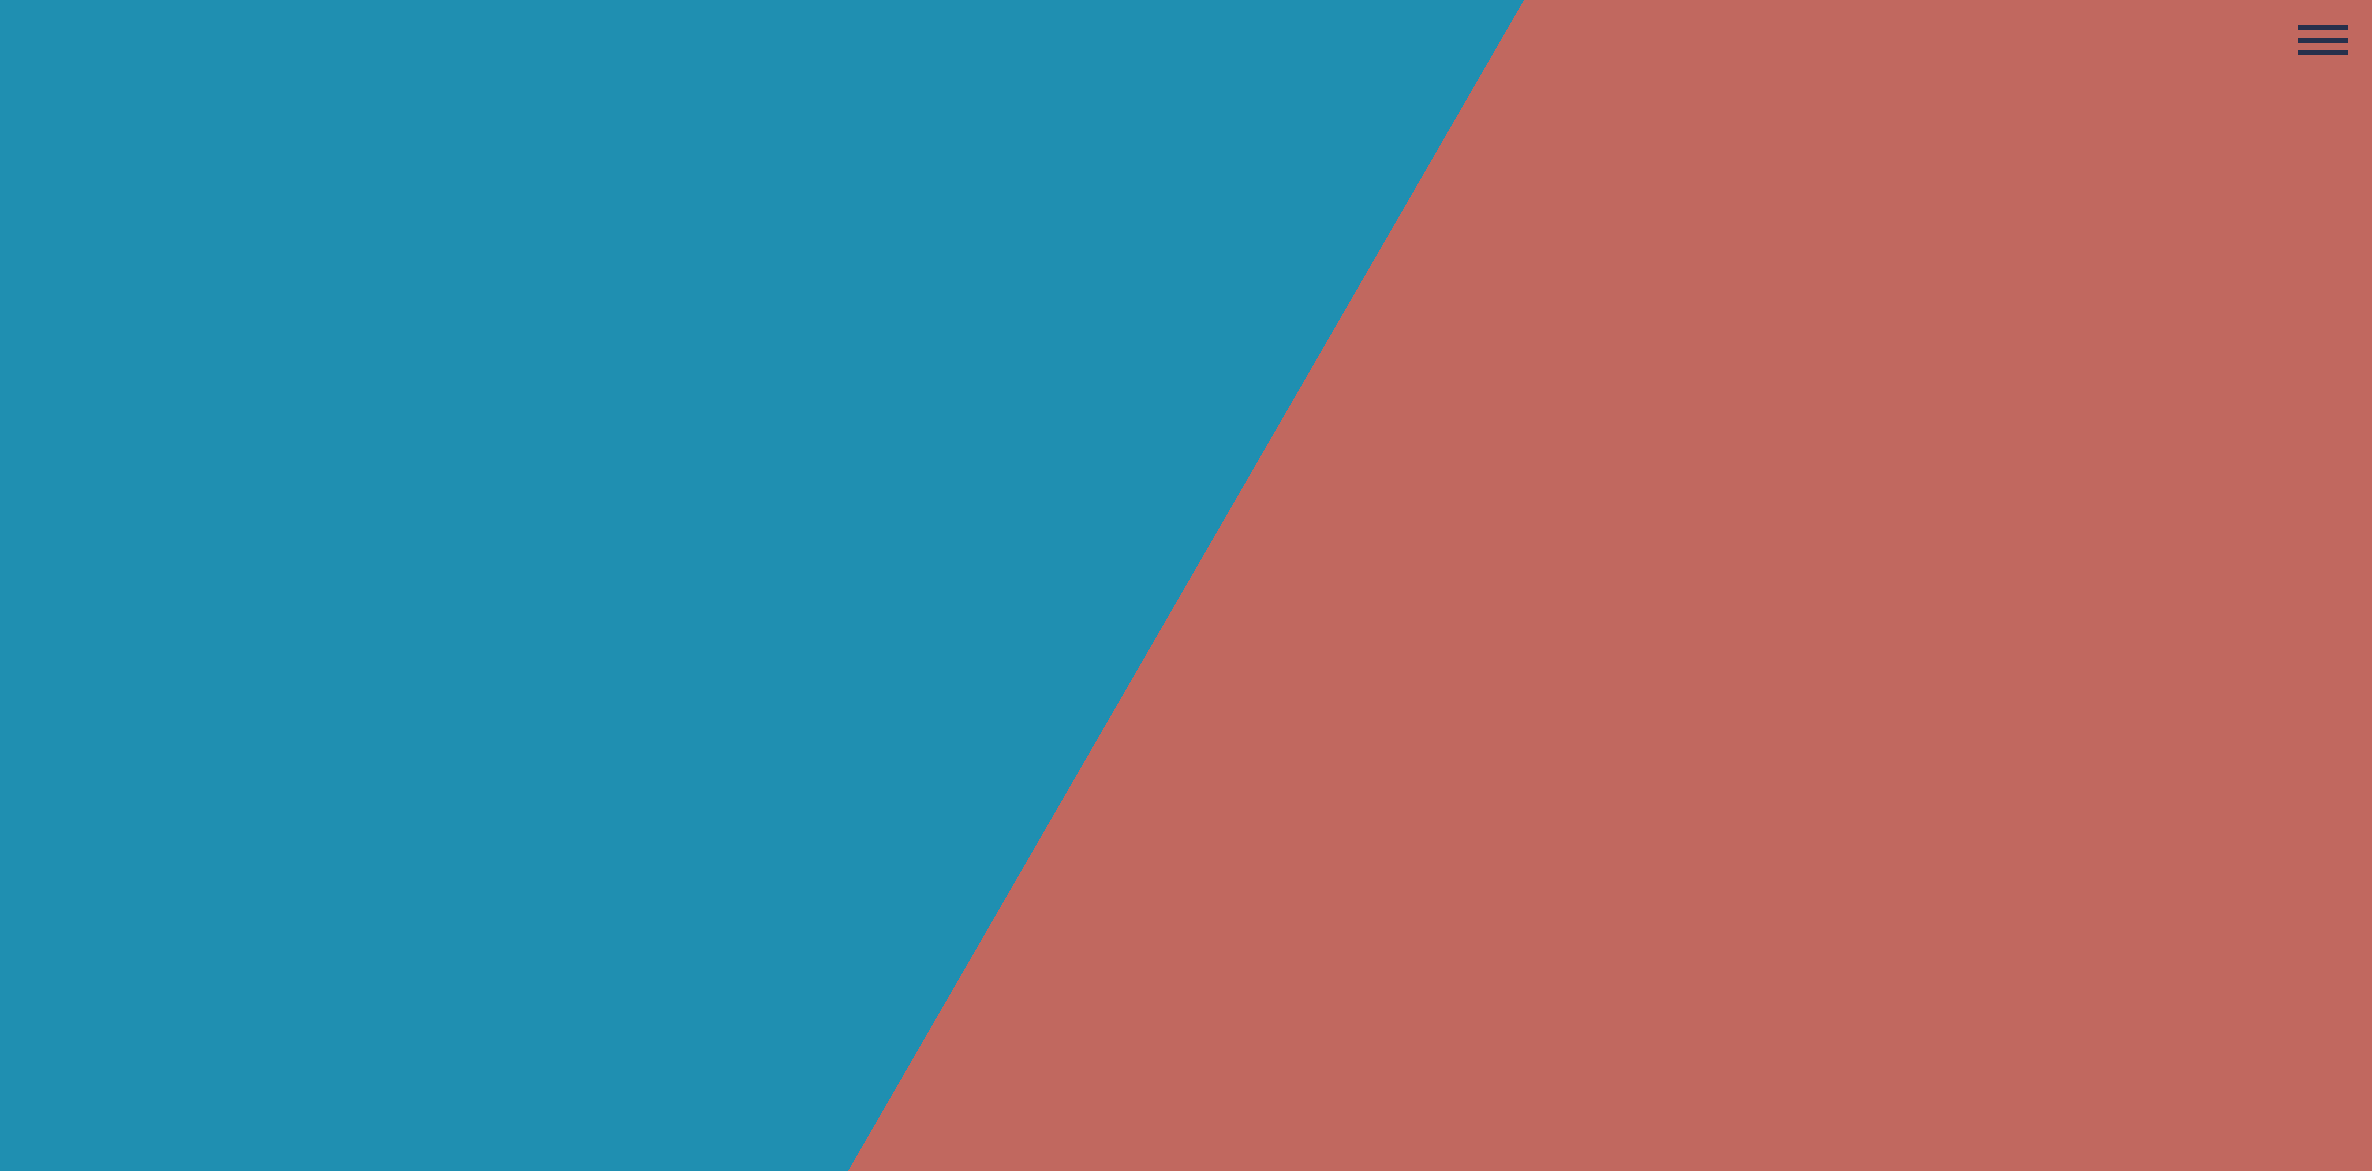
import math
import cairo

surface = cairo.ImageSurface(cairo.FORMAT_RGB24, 2372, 1171)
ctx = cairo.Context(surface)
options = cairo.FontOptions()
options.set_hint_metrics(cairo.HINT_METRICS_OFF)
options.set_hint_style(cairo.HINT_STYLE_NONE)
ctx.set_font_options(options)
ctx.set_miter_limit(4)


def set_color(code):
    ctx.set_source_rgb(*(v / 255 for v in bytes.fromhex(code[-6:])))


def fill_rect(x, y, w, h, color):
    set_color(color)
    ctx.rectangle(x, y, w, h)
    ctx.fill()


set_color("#ffffff")
ctx.paint()
gradient = cairo.LinearGradient(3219, 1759, -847, -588)
gradient.add_color_stop_rgba(0.5, 0.545, 0.467, 0.486, 1)
gradient.add_color_stop_rgba(0.5, 0.18, 0.553, 0.667, 1)
ctx.set_source(gradient)
ctx.rectangle(0, 0, 2372, 1171)
ctx.fill()
gradient = cairo.LinearGradient(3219, 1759, -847, -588)
gradient.add_color_stop_rgba(0.5, 0.831, 0.392, 0.341, 0.5)
gradient.add_color_stop_rgba(0.5, 0.102, 0.565, 0.702, 0.5)
ctx.set_source(gradient)
ctx.rectangle(0, 0, 2372, 1171)
ctx.fill()
ctx.rectangle(0, 0, 2372, 1171)
ctx.fill()
fill_rect(2298, 38, 50, 5, "#26304c")
fill_rect(2298, 25, 50, 5, "#26304c")
fill_rect(2298, 50, 50, 5, "#26304c")
surface.write_to_png("output.png")
